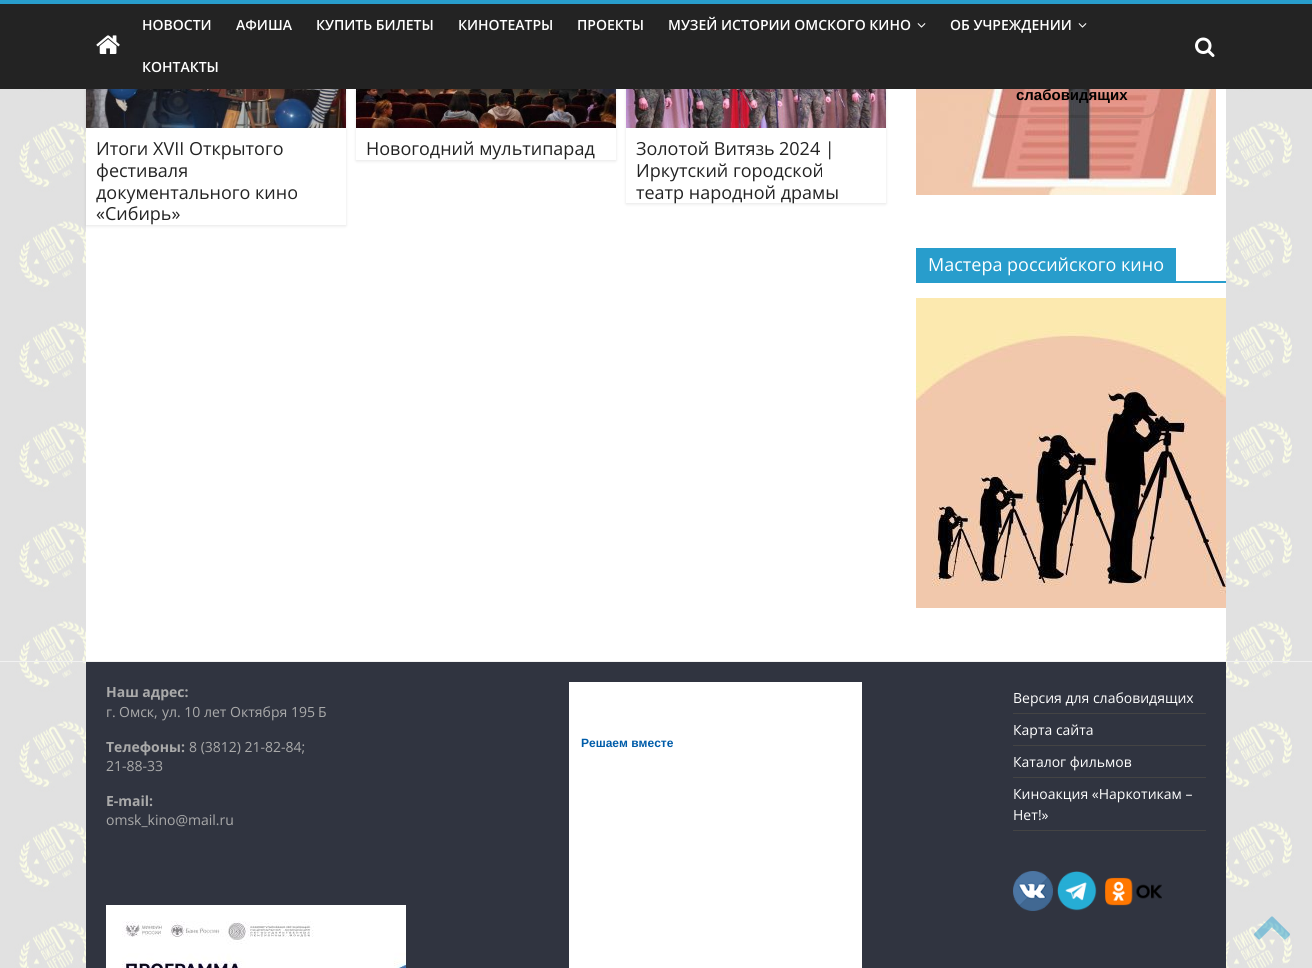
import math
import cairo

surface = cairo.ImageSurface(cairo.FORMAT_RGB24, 1312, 968)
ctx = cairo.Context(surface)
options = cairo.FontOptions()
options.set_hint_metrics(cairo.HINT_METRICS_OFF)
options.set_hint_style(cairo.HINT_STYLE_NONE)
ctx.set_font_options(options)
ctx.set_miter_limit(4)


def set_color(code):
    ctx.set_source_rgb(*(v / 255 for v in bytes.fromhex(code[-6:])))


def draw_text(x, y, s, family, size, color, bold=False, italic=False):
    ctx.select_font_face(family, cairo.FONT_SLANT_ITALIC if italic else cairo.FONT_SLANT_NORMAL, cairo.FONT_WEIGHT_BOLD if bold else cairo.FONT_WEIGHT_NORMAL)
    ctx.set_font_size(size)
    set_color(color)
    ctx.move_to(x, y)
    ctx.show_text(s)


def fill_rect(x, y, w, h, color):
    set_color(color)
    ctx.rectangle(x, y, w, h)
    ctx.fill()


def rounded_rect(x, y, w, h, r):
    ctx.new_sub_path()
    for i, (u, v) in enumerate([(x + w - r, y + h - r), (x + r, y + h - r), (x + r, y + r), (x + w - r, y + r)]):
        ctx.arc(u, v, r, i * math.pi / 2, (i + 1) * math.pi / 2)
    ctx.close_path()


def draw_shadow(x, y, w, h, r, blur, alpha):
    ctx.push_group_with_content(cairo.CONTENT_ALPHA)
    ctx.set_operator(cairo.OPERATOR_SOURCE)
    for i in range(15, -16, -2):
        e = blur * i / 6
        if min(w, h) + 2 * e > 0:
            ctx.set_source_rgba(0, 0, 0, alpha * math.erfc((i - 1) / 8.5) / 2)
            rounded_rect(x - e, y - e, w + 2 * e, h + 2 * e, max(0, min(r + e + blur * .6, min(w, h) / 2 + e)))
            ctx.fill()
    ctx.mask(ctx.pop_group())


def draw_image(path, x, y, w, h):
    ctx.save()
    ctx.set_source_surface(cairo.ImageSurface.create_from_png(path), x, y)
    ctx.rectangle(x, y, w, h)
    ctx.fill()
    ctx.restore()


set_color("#ffffff")
ctx.paint()
draw_image("assets/img1.png", 0, 89, 1312, 879)
fill_rect(86, 89, 1140, 572, "#ffffff")
ctx.save()
ctx.set_fill_rule(cairo.FILL_RULE_EVEN_ODD)
ctx.new_path()
ctx.move_to(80, 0)
ctx.line_to(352, 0)
ctx.line_to(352, 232)
ctx.line_to(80, 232)
ctx.close_path()
ctx.move_to(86, -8)
ctx.line_to(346, -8)
ctx.line_to(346, 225)
ctx.line_to(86, 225)
ctx.close_path()
ctx.clip()
set_color("#000000")
draw_shadow(86, -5, 260, 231, 0, 1.5, 0.1)
ctx.restore()
ctx.save()
ctx.set_fill_rule(cairo.FILL_RULE_EVEN_ODD)
ctx.new_path()
ctx.move_to(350, 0)
ctx.line_to(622, 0)
ctx.line_to(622, 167)
ctx.line_to(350, 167)
ctx.close_path()
ctx.move_to(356, -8)
ctx.line_to(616, -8)
ctx.line_to(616, 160)
ctx.line_to(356, 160)
ctx.close_path()
ctx.clip()
set_color("#000000")
draw_shadow(356, -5, 260, 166, 0, 1.5, 0.1)
ctx.restore()
ctx.save()
ctx.set_fill_rule(cairo.FILL_RULE_EVEN_ODD)
ctx.new_path()
ctx.move_to(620, 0)
ctx.line_to(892, 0)
ctx.line_to(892, 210)
ctx.line_to(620, 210)
ctx.close_path()
ctx.move_to(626, -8)
ctx.line_to(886, -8)
ctx.line_to(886, 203)
ctx.line_to(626, 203)
ctx.close_path()
ctx.clip()
set_color("#000000")
draw_shadow(626, -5, 260, 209, 0, 1.5, 0.1)
ctx.restore()
fill_rect(0, 4, 1312, 85, "#232323")
fill_rect(0, 0, 1312, 4, "#289dcc")
draw_image("assets/img2.png", 96, 35, 24, 19)
draw_text(142, 30, "НОВОСТИ", "Open Sans SemiBold", 14, "#ffffff")
draw_text(236, 30, "АФИША", "Open Sans SemiBold", 14, "#ffffff")
draw_text(316, 30, "КУПИТЬ БИЛЕТЫ", "Open Sans SemiBold", 14, "#ffffff")
draw_text(458, 30, "КИНОТЕАТРЫ", "Open Sans SemiBold", 14, "#ffffff")
draw_text(577, 30, "ПРОЕКТЫ", "Open Sans SemiBold", 14, "#ffffff")
draw_text(668, 30, "МУЗЕЙ ИСТОРИИ ОМСКОГО КИНО", "Open Sans SemiBold", 14, "#ffffff")
draw_image("assets/img3.png", 917, 23, 9, 5)
draw_text(950, 30, "ОБ УЧРЕЖДЕНИИ", "Open Sans SemiBold", 14, "#ffffff")
draw_image("assets/img3.png", 1078, 23, 9, 5)
draw_text(142, 72, "КОНТАКТЫ", "Open Sans SemiBold", 14, "#ffffff")
draw_image("assets/img4.png", 1195, 37, 20, 20)
draw_image("assets/img8.png", 916, 89, 300, 106)
ctx.set_source_rgba(0, 0, 0, 0.1)
ctx.new_path()
ctx.move_to(987, 105)
ctx.line_to(987, 108)
ctx.curve_to(987, 114, 991, 118, 997, 118)
ctx.line_to(1146, 118)
ctx.curve_to(1152, 118, 1156, 114, 1156, 108)
ctx.line_to(1156, 105)
ctx.curve_to(1156, 111, 1152, 115, 1146, 115)
ctx.line_to(997, 115)
ctx.curve_to(991, 115, 987, 111, 987, 105)
ctx.close_path()
ctx.fill()
draw_text(1016, 100, "слабовидящих", "Liberation Sans", 15, "#000000", bold=True)
draw_image("assets/img5.png", 86, 89, 260, 39)
draw_text(96, 155, "Итоги", "Open Sans", 18, "#232323")
draw_text(153, 155, "XVII", "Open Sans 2", 18, "#232323")
draw_text(189, 155, "Открытого", "Open Sans", 18, "#232323")
draw_text(96, 177, "фестиваля", "Open Sans", 18, "#232323")
draw_text(96, 199, "документального кино", "Open Sans", 18, "#232323")
draw_text(96, 220, "«Сибирь»", "Open Sans", 18, "#232323")
draw_image("assets/img6.png", 356, 89, 260, 39)
draw_text(366, 155, "Новогодний мультипарад", "Open Sans", 18, "#232323")
draw_image("assets/img7.png", 626, 89, 260, 39)
draw_text(636, 155, "Золотой Витязь", "Open Sans", 18, "#232323")
draw_text(779, 155, "2024 |", "Open Sans 2", 18, "#232323")
draw_text(636, 177, "Иркутский городской", "Open Sans", 18, "#232323")
draw_text(636, 199, "театр народной драмы", "Open Sans", 18, "#232323")
fill_rect(916, 281, 310, 2, "#289dcc")
fill_rect(916, 248, 260, 33, "#289dcc")
draw_text(928, 271, "Мастера российского кино", "Open Sans", 18, "#ffffff")
draw_image("assets/img9.png", 916, 298, 310, 310)
fill_rect(0, 661, 1312, 1, "#f2f2f2")
fill_rect(86, 662, 1140, 306, "#303440")
draw_text(106, 697, "Наш адрес:", "Open Sans", 14, "#aaaaaa", bold=True)
draw_text(106, 717, "г", "Open Sans", 14, "#aaaaaa")
draw_text(112, 717, ".", "Open Sans 2", 14, "#aaaaaa")
draw_text(119, 717, "Омск", "Open Sans", 14, "#aaaaaa")
draw_text(154, 717, ",", "Open Sans 2", 14, "#aaaaaa")
draw_text(162, 717, "ул", "Open Sans", 14, "#aaaaaa")
draw_text(177, 717, ". 10", "Open Sans 2", 14, "#aaaaaa")
draw_text(204, 717, "лет Октября", "Open Sans", 14, "#aaaaaa")
draw_text(291, 717, "195", "Open Sans 2", 14, "#aaaaaa")
draw_text(318, 717, "Б", "Open Sans", 14, "#aaaaaa")
draw_text(106, 752, "Телефоны:", "Open Sans", 14, "#aaaaaa", bold=True)
draw_text(189, 752, "8 (3812) 21-82-84;", "Open Sans 2", 14, "#aaaaaa")
draw_text(106, 771, "21-88-33", "Open Sans 2", 14, "#aaaaaa")
draw_text(106, 806, "E-mail:", "Open Sans", 14, "#aaaaaa", bold=True)
draw_text(106, 825, "omsk_kino@mail.ru", "Open Sans 2", 14, "#aaaaaa")
draw_image("assets/img10.png", 106, 905, 300, 63)
fill_rect(569, 682, 293, 286, "#ffffff")
draw_text(581, 747, "Решаем вместе", "Liberation Sans", 12, "#005ca9", bold=True)
fill_rect(1013, 713, 193, 1, "#444444")
draw_text(1013, 703, "Версия для слабовидящих", "Open Sans", 14, "#ffffff")
fill_rect(1013, 745, 193, 1, "#444444")
draw_text(1013, 735, "Карта сайта", "Open Sans", 14, "#ffffff")
fill_rect(1013, 777, 193, 1, "#444444")
draw_text(1013, 767, "Каталог фильмов", "Open Sans", 14, "#ffffff")
fill_rect(1013, 830, 193, 1, "#444444")
draw_text(1013, 799, "Киноакция «Наркотикам –", "Open Sans", 14, "#ffffff")
draw_text(1013, 820, "Нет »", "Open Sans", 14, "#ffffff")
draw_text(1038, 820, "!", "Open Sans 2", 14, "#ffffff")
draw_image("assets/img11.png", 1013, 871, 40, 40)
draw_image("assets/img12.png", 1057, 871, 40, 40)
draw_image("assets/img13.png", 1105, 877, 57, 29)
draw_image("assets/img14.png", 1254, 916, 36, 24)
surface.write_to_png("output.png")
